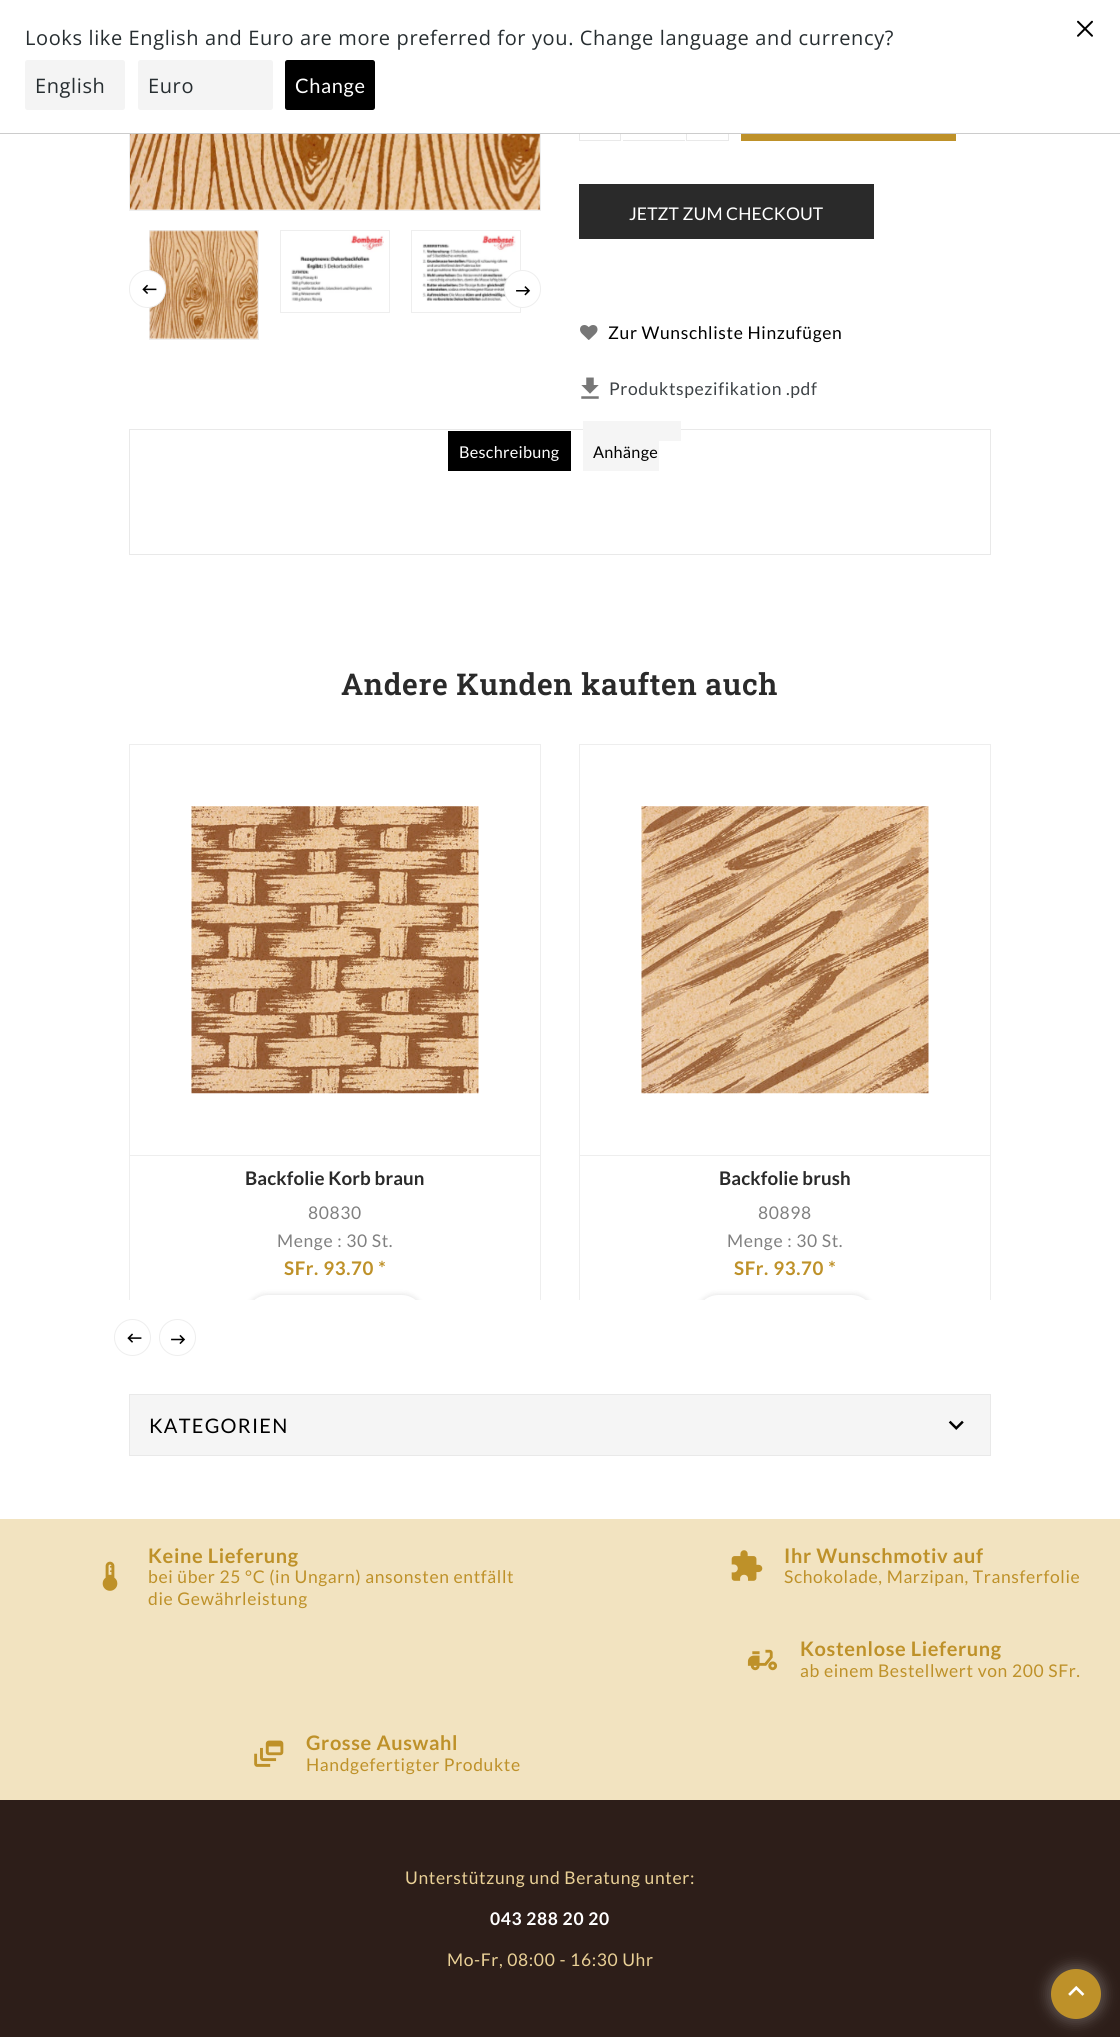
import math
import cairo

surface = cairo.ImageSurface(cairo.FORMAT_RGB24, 1120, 2037)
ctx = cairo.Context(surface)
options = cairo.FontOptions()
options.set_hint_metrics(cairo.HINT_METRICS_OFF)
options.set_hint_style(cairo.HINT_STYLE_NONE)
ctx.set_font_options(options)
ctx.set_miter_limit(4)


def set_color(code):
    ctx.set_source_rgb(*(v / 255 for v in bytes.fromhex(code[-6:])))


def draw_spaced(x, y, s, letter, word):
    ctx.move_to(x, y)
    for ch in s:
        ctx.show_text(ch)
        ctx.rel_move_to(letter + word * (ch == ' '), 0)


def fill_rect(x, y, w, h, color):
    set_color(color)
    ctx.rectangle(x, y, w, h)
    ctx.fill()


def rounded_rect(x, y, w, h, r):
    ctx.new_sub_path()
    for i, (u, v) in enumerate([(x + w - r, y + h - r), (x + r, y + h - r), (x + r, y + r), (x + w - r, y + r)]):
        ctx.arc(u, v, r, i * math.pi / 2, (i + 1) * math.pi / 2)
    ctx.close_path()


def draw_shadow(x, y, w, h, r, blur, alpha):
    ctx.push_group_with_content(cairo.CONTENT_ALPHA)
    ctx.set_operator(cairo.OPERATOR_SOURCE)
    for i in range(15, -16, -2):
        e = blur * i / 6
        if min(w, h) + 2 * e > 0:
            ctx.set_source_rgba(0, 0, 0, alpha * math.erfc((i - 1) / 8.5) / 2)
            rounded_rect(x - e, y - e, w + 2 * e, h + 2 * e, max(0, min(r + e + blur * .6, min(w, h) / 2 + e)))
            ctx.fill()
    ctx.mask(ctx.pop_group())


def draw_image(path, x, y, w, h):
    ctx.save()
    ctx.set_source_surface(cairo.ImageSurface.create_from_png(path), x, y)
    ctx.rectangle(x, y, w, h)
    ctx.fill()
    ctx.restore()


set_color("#ffffff")
ctx.paint()
ctx.rectangle(129.5, -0.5, 411, 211)
set_color("#eeeeee")
ctx.set_line_width(1)
ctx.stroke()
ctx.rectangle(579.5, 79.5, 41, 61)
set_color("#e9e9e9")
ctx.stroke()
ctx.rectangle(686.5, 79.5, 42, 61)
ctx.stroke()
fill_rect(129, 0, 600, 133, "#ffffff")
fill_rect(0, 133, 1120, 1, "#cccccc")
ctx.select_font_face("Open Sans")
ctx.set_font_size(20)
set_color("#272e31")
draw_spaced(25, 45, "Looks like English and Euro are more preferred for you. Change language and currency?", 0.62, 0)
set_color("#f4f4f4")
rounded_rect(25, 60, 100, 50, 2.5)
ctx.fill()
set_color("#272e31")
draw_spaced(35, 93, "English", 0.62, 0)
set_color("#f4f4f4")
rounded_rect(138, 60, 135, 50, 2.5)
ctx.fill()
set_color("#272e31")
draw_spaced(148, 93, "Euro", 0.62, 0)
set_color("#000000")
rounded_rect(285, 60, 90, 50, 2.5)
ctx.fill()
ctx.select_font_face("Lato")
set_color("#ffffff")
draw_spaced(295, 93, "Change", 0.62, 0)
draw_image("assets/img1.png", 1077, 20, 16, 17)
draw_image("assets/img2.png", 130, 134, 410, 76)
ctx.rectangle(149.5, 230.5, 109, 109)
set_color("#eeeeee")
ctx.stroke()
draw_image("assets/img3.png", 149, 230, 109, 109)
ctx.rectangle(280.5, 230.5, 109, 82)
ctx.stroke()
draw_image("assets/img4.png", 291, 235, 93, 67)
ctx.rectangle(411.5, 230.5, 109, 82)
ctx.stroke()
draw_image("assets/img5.png", 422, 235, 94, 66)
set_color("#ffffff")
rounded_rect(129.5, 270.5, 36, 37, 18)
ctx.fill_preserve()
set_color("#eeeeee")
ctx.stroke()
draw_image("assets/img6.png", 142, 284, 15, 10)
set_color("#ffffff")
rounded_rect(504.5, 270.5, 36, 37, 18)
ctx.fill_preserve()
set_color("#eeeeee")
ctx.stroke()
draw_image("assets/img7.png", 516, 286, 15, 10)
fill_rect(623, 140, 62, 1, "#e9e9e9")
fill_rect(741, 134, 215, 7, "#be9129")
fill_rect(579, 184, 295, 55, "#2a2a2a")
ctx.set_font_size(17.5)
set_color("#ffffff")
draw_spaced(629, 220, "JETZT ZUM CHECKOUT", 0.1, 0)
draw_image("assets/img8.png", 580, 325, 18, 15)
set_color("#000000")
draw_spaced(608, 339, "Zur Wunschliste Hinzufügen", 0.62, 0)
draw_image("assets/img9.png", 581, 377, 18, 22)
set_color("#3d4246")
draw_spaced(609, 395, "Produktspezifikation .pdf", 0.62, 0)
ctx.rectangle(129.5, 429.5, 861, 125)
set_color("#e9e9e9")
ctx.stroke()
fill_rect(448, 431, 123, 40, "#000000")
ctx.set_font_size(16.25)
set_color("#ffffff")
draw_spaced(459, 458, "Beschreibung", 0.25, 0)
fill_rect(583, 441, 76, 30, "#f5f5f5")
set_color("#000000")
draw_spaced(593, 458, "Anhänge", 0.25, 0)
fill_rect(583, 421, 98, 20, "#f5f5f5")
ctx.select_font_face("Roboto Slab SemiBold")
ctx.set_font_size(30)
set_color("#2a2a2a")
draw_spaced(341, 695, "Andere Kunden kauften auch", 0.62, 0)
ctx.new_path()
ctx.arc(132.5, 1337.5, 18, 0, 2 * math.pi)
set_color("#eeeeee")
ctx.stroke()
ctx.arc(177.5, 1337.5, 18, 0, 2 * math.pi)
ctx.stroke()
ctx.save()
ctx.rectangle(110, 725, 900, 575)
ctx.clip()
ctx.rectangle(129.5, 744.5, 411, 615)
ctx.stroke()
ctx.restore()
draw_image("assets/img10.png", 191, 806, 288, 288)
fill_rect(130, 1155, 410, 1, "#eeeeee")
ctx.select_font_face("Lato", cairo.FONT_SLANT_NORMAL, cairo.FONT_WEIGHT_BOLD)
ctx.set_font_size(18.75)
set_color("#2a2a2a")
draw_spaced(245, 1185, "Backfolie Korb braun", 0.1, 0)
ctx.select_font_face("Lato")
ctx.set_font_size(17.5)
set_color("#808080")
draw_spaced(308, 1219, "80830", 0.62, 0)
draw_spaced(277, 1247, "Menge : 30 St.", 0.62, 0)
ctx.select_font_face("Lato", cairo.FONT_SLANT_NORMAL, cairo.FONT_WEIGHT_BOLD)
ctx.set_font_size(18.75)
set_color("#be9129")
draw_spaced(284, 1275, "SFr. 93.70 *", 0.62, 0)
ctx.save()
ctx.rectangle(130, 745, 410, 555)
ctx.clip()
set_color("#000000")
draw_shadow(245, 1294, 180, 47, 23.5, 2.5, 0.1)
ctx.restore()
set_color("#ffffff")
ctx.new_path()
ctx.move_to(268.5, 1295)
ctx.line_to(401.5, 1295)
ctx.curve_to(414, 1295, 424, 1305, 424, 1317.5)
ctx.line_to(424, 1300)
ctx.line_to(246, 1300)
ctx.line_to(246, 1317.5)
ctx.curve_to(246, 1305, 256, 1295, 268.5, 1295)
ctx.close_path()
ctx.fill()
ctx.save()
ctx.rectangle(110, 725, 900, 575)
ctx.clip()
ctx.rectangle(579.5, 744.5, 411, 615)
set_color("#eeeeee")
ctx.stroke()
ctx.restore()
draw_image("assets/img11.png", 641, 806, 288, 288)
fill_rect(580, 1155, 410, 1, "#eeeeee")
set_color("#2a2a2a")
draw_spaced(719, 1185, "Backfolie brush", 0.1, 0)
ctx.select_font_face("Lato")
ctx.set_font_size(17.5)
set_color("#808080")
draw_spaced(758, 1219, "80898", 0.62, 0)
draw_spaced(727, 1247, "Menge : 30 St.", 0.62, 0)
ctx.select_font_face("Lato", cairo.FONT_SLANT_NORMAL, cairo.FONT_WEIGHT_BOLD)
ctx.set_font_size(18.75)
set_color("#be9129")
draw_spaced(734, 1275, "SFr. 93.70 *", 0.62, 0)
ctx.save()
ctx.rectangle(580, 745, 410, 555)
ctx.clip()
set_color("#000000")
draw_shadow(695, 1294, 180, 47, 23.5, 2.5, 0.1)
ctx.restore()
set_color("#ffffff")
ctx.new_path()
ctx.move_to(718.5, 1295)
ctx.line_to(851.5, 1295)
ctx.curve_to(864, 1295, 874, 1305, 874, 1317.5)
ctx.line_to(874, 1300)
ctx.line_to(696, 1300)
ctx.line_to(696, 1317.5)
ctx.curve_to(696, 1305, 706, 1295, 718.5, 1295)
ctx.close_path()
ctx.fill()
draw_image("assets/img12.png", 127, 1333, 15, 10)
draw_image("assets/img13.png", 171, 1334, 15, 11)
ctx.rectangle(129.5, 1394.5, 861, 61)
set_color("#e9e9e9")
ctx.stroke()
fill_rect(130, 1395, 860, 60, "#f5f5f5")
ctx.select_font_face("Lato")
ctx.set_font_size(20)
set_color("#000000")
draw_spaced(149, 1433, "KATEGORIEN", 1.25, 0)
draw_image("assets/img14.png", 948, 1420, 16, 10)
fill_rect(0, 1800, 1120, 237, "#2d1e19")
fill_rect(0, 1519, 1120, 281, "#f2e3c0")
draw_image("assets/img15.png", 102, 1561, 16, 30)
ctx.select_font_face("Lato", cairo.FONT_SLANT_NORMAL, cairo.FONT_WEIGHT_BOLD)
set_color("#be9129")
draw_spaced(148, 1563, "Keine Lieferung", 0.62, 0)
ctx.select_font_face("Lato")
ctx.set_font_size(17.5)
draw_spaced(148, 1583, "bei über 25 °C (in Ungarn) ansonsten entfällt", 0.62, 0)
draw_spaced(148, 1605, "die Gewährleistung", 0.62, 0)
draw_image("assets/img16.png", 731, 1550, 32, 31)
ctx.select_font_face("Lato", cairo.FONT_SLANT_NORMAL, cairo.FONT_WEIGHT_BOLD)
ctx.set_font_size(20)
draw_spaced(784, 1563, "Ihr Wunschmotiv auf", 0.62, 0)
ctx.select_font_face("Lato")
ctx.set_font_size(17.5)
draw_spaced(784, 1583, "Schokolade, Marzipan, Transferfolie", 0.62, 0)
draw_image("assets/img17.png", 747, 1649, 31, 22)
ctx.select_font_face("Lato", cairo.FONT_SLANT_NORMAL, cairo.FONT_WEIGHT_BOLD)
ctx.set_font_size(20)
draw_spaced(800, 1656, "Kostenlose Lieferung", 0.62, 0)
ctx.select_font_face("Lato")
ctx.set_font_size(17.5)
draw_spaced(800, 1677, "ab einem Bestellwert von 200 SFr.", 0.62, 0)
draw_image("assets/img18.png", 254, 1740, 30, 27)
ctx.select_font_face("Lato", cairo.FONT_SLANT_NORMAL, cairo.FONT_WEIGHT_BOLD)
ctx.set_font_size(20)
draw_spaced(306, 1750, "Grosse Auswahl", 0.62, 0)
ctx.select_font_face("Lato")
ctx.set_font_size(17.5)
draw_spaced(306, 1771, "Handgefertigter Produkte", 0.62, 0)
set_color("#e9d096")
draw_spaced(405, 1884, "Unterstützung und Beratung unter:", 0.62, 0)
ctx.select_font_face("Lato", cairo.FONT_SLANT_NORMAL, cairo.FONT_WEIGHT_BOLD)
set_color("#ffffff")
draw_spaced(490, 1925, "043 288 20 20", 0.62, 0)
ctx.select_font_face("Lato")
set_color("#e9d096")
draw_spaced(447, 1966, "Mo-Fr, 08:00 - 16:30 Uhr", 0.62, 0)
set_color("#ffffff")
draw_shadow(1046, 1964, 60, 60, 30, 6, 0.2)
set_color("#be9129")
ctx.arc(1076, 1994, 25, 0, 2 * math.pi)
ctx.fill()
draw_image("assets/img19.png", 1068, 1986, 17, 10)
surface.write_to_png("output.png")
